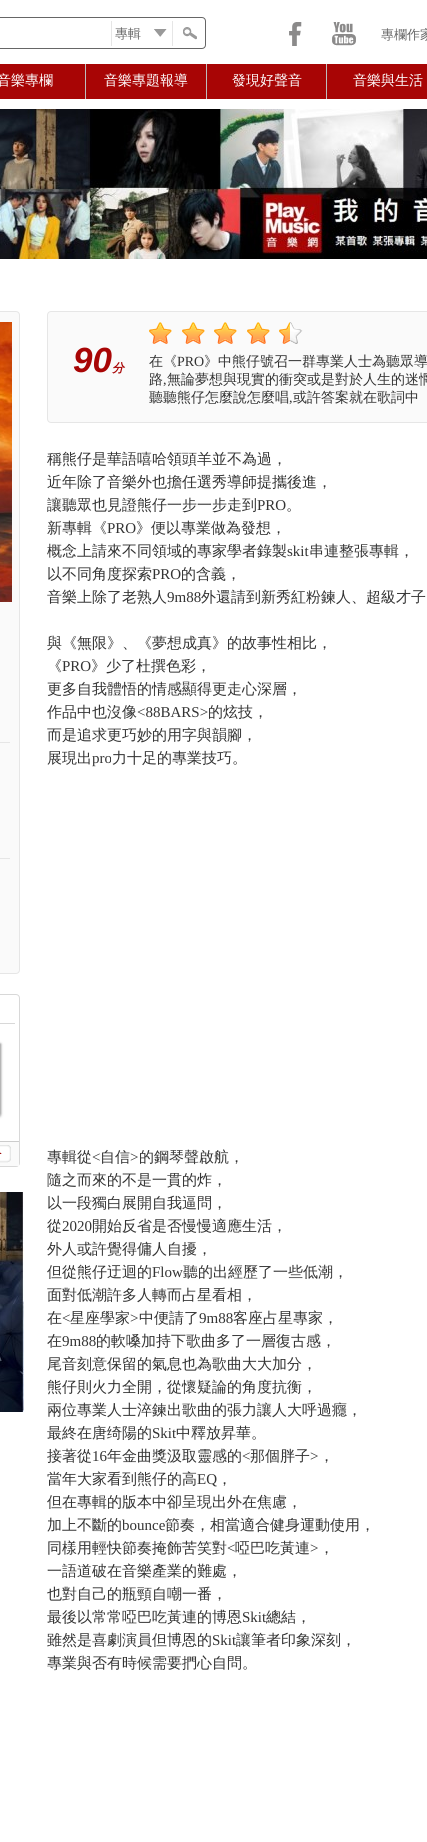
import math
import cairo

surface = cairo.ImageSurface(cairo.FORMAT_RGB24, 427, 1842)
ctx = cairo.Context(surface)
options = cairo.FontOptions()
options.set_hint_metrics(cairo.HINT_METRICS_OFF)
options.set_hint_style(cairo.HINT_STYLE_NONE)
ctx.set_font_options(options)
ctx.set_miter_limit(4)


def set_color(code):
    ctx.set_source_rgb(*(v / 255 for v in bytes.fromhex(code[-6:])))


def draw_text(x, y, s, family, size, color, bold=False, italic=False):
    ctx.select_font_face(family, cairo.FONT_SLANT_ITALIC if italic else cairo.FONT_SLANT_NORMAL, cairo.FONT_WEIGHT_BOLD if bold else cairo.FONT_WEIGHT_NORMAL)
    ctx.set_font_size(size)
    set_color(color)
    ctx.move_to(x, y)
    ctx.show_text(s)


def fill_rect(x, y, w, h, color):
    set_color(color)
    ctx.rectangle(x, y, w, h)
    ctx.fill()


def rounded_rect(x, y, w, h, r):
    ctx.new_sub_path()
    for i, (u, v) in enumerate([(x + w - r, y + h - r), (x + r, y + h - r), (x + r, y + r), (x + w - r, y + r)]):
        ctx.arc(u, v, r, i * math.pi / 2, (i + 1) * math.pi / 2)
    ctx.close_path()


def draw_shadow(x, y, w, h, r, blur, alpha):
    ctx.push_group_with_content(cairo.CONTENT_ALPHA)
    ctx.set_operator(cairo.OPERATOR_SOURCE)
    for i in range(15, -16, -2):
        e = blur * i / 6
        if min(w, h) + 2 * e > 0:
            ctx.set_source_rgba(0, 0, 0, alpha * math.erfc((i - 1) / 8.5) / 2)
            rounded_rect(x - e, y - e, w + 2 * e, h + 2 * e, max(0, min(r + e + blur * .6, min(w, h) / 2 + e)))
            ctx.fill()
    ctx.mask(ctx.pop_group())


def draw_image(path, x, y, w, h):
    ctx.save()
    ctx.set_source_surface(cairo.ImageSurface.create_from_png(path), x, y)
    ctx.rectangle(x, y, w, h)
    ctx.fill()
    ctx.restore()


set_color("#ffffff")
ctx.paint()
rounded_rect(-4.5, 17.5, 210, 31, 3.5)
set_color("#666666")
ctx.set_line_width(1)
ctx.stroke()
draw_image("assets/img1.png", 154, 29, 13, 8)
fill_rect(172, 21, 1, 25, "#e6e6e6")
fill_rect(111, 21, 1, 25, "#e6e6e6")
draw_text(115, 38, "專輯", "WenQuanYi Zen Hei Medium", 13, "#666666")
draw_image("assets/img2.png", 183, 27, 14, 13)
draw_image("assets/img3.png", 289, 22, 13, 24)
draw_image("assets/img4.png", 332, 22, 24, 24)
draw_text(381, 39, "專欄作家", "WenQuanYi Zen Hei Medium", 13, "#666666")
fill_rect(0, 64, 427, 35, "#a80505")
fill_rect(85, 64, 1, 35, "#bdbdbd")
draw_text(-3, 85, "音樂專欄", "WenQuanYi Zen Hei Medium", 14, "#ffffff")
fill_rect(206, 64, 1, 35, "#bdbdbd")
draw_text(104, 85, "音樂專題報導", "WenQuanYi Zen Hei Medium", 14, "#ffffff")
fill_rect(326, 64, 1, 35, "#bdbdbd")
draw_text(232, 85, "發現好聲音", "WenQuanYi Zen Hei Medium", 14, "#ffffff")
draw_text(353, 85, "音樂與生活", "WenQuanYi Zen Hei Medium", 14, "#ffffff")
draw_image("assets/img5.png", 0, 109, 427, 150)
set_color("#fafafa")
rounded_rect(-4.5, 311.5, 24, 662, 3.5)
ctx.fill_preserve()
set_color("#e6e6e6")
ctx.stroke()
draw_image("assets/img6.png", 0, 322, 12, 280)
fill_rect(0, 742, 10, 1, "#e6e6e6")
fill_rect(0, 858, 10, 1, "#e6e6e6")
rounded_rect(-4.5, 994.5, 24, 172, 3.5)
set_color("#d8d8d8")
ctx.stroke()
fill_rect(0, 1023, 15, 1, "#d8d8d8")
set_color("#323232")
draw_shadow(-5, 1044, 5, 72, 0, 1.5, 0.62)
set_color("#969696")
draw_shadow(-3, 1044, 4, 70, 0, 1, 0.62)
fill_rect(0, 1142, 19, 24, "#fafafa")
fill_rect(0, 1141, 19, 1, "#cccccc")
draw_image("assets/img7.png", 0, 1145, 11, 18)
draw_image("assets/img8.png", 0, 1192, 24, 220)
set_color("#fafafa")
rounded_rect(47.5, 311.5, 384, 111, 3.5)
ctx.fill_preserve()
set_color("#e6e6e6")
ctx.stroke()
draw_text(73, 372, "90", "Liberation Sans", 35, "#a80505", bold=True, italic=True)
draw_text(112, 372, "分", "WenQuanYi Zen Hei", 12, "#a80505", bold=True, italic=True)
draw_image("assets/img9.png", 149, 322, 23, 22)
draw_image("assets/img9.png", 182, 322, 23, 22)
draw_image("assets/img9.png", 214, 322, 23, 22)
draw_image("assets/img9.png", 247, 322, 23, 22)
draw_image("assets/img10.png", 279, 322, 24, 22)
draw_text(149, 366, "在《", "WenQuanYi Zen Hei Medium", 14, "#333333")
draw_text(177, 366, "PRO", "Liberation Serif", 14, "#333333")
draw_text(204, 366, "》中熊仔號召一群專業人士為聽眾導", "WenQuanYi Zen Hei Medium", 14, "#333333")
draw_text(149, 384, "路", "WenQuanYi Zen Hei Medium", 14, "#333333")
draw_text(163, 384, ",", "Liberation Serif", 14, "#333333")
draw_text(167, 384, "無論夢想與現實的衝突或是對於人生的迷惘", "WenQuanYi Zen Hei Medium", 14, "#333333")
draw_text(149, 402, "聽聽熊仔怎麼說怎麼唱", "WenQuanYi Zen Hei Medium", 14, "#333333")
draw_text(289, 402, ",", "Liberation Serif", 14, "#333333")
draw_text(293, 402, "或許答案就在歌詞中", "WenQuanYi Zen Hei Medium", 14, "#333333")
draw_text(47, 464, "稱熊仔是華語嘻哈領頭羊並不為過，", "WenQuanYi Zen Hei Medium", 15, "#333333")
draw_text(47, 487, "近年除了音樂外也擔任選秀導師提攜後進，", "WenQuanYi Zen Hei Medium", 15, "#333333")
draw_text(47, 510, "讓聽眾也見證熊仔一步一步走到", "WenQuanYi Zen Hei Medium", 15, "#333333")
draw_text(257, 510, "PRO", "Liberation Serif", 15, "#333333")
draw_text(286, 510, "。", "WenQuanYi Zen Hei Medium", 15, "#333333")
draw_text(47, 533, "新專輯《", "WenQuanYi Zen Hei Medium", 15, "#333333")
draw_text(107, 533, "PRO", "Liberation Serif", 15, "#333333")
draw_text(136, 533, "》便以專業做為發想，", "WenQuanYi Zen Hei Medium", 15, "#333333")
draw_text(47, 556, "概念上請來不同領域的專家學者錄製", "WenQuanYi Zen Hei Medium", 15, "#333333")
draw_text(287, 556, "skit", "Liberation Serif", 15, "#333333")
draw_text(309, 556, "串連整張專輯，", "WenQuanYi Zen Hei Medium", 15, "#333333")
draw_text(47, 579, "以不同角度探索", "WenQuanYi Zen Hei Medium", 15, "#333333")
draw_text(152, 579, "PRO", "Liberation Serif", 15, "#333333")
draw_text(181, 579, "的含義，", "WenQuanYi Zen Hei Medium", 15, "#333333")
draw_text(47, 602, "音樂上除了老熟人", "WenQuanYi Zen Hei Medium", 15, "#333333")
draw_text(167, 602, "9m88", "Liberation Serif", 15, "#333333")
draw_text(201, 602, "外還請到新秀紅粉鍊人、超級才子", "WenQuanYi Zen Hei Medium", 15, "#333333")
draw_text(47, 648, "與《無限》、《夢想成真》的故事性相比，", "WenQuanYi Zen Hei Medium", 15, "#333333")
draw_text(47, 671, "《", "WenQuanYi Zen Hei Medium", 15, "#333333")
draw_text(62, 671, "PRO", "Liberation Serif", 15, "#333333")
draw_text(91, 671, "》少了杜撰色彩，", "WenQuanYi Zen Hei Medium", 15, "#333333")
draw_text(47, 694, "更多自我體悟的情感顯得更走心深層，", "WenQuanYi Zen Hei Medium", 15, "#333333")
draw_text(47, 717, "作品中也沒像", "WenQuanYi Zen Hei Medium", 15, "#333333")
draw_text(137, 717, "<88BARS>", "Liberation Serif", 15, "#333333")
draw_text(208, 717, "的炫技，", "WenQuanYi Zen Hei Medium", 15, "#333333")
draw_text(47, 740, "而是追求更巧妙的用字與韻腳，", "WenQuanYi Zen Hei Medium", 15, "#333333")
draw_text(47, 763, "展現出", "WenQuanYi Zen Hei Medium", 15, "#333333")
draw_text(92, 763, "pro", "Liberation Serif", 15, "#333333")
draw_text(112, 763, "力十足的專業技巧。", "WenQuanYi Zen Hei Medium", 15, "#333333")
draw_text(47, 1162, "專輯從", "WenQuanYi Zen Hei Medium", 15, "#333333")
draw_text(92, 1162, "<", "Liberation Serif", 15, "#333333")
draw_text(100, 1162, "自信", "WenQuanYi Zen Hei Medium", 15, "#333333")
draw_text(130, 1162, ">", "Liberation Serif", 15, "#333333")
draw_text(139, 1162, "的鋼琴聲啟航，", "WenQuanYi Zen Hei Medium", 15, "#333333")
draw_text(47, 1185, "隨之而來的不是一貫的炸，", "WenQuanYi Zen Hei Medium", 15, "#333333")
draw_text(47, 1208, "以一段獨白展開自我逼問，", "WenQuanYi Zen Hei Medium", 15, "#333333")
draw_text(47, 1231, "從", "WenQuanYi Zen Hei Medium", 15, "#333333")
draw_text(62, 1231, "2020", "Liberation Serif", 15, "#333333")
draw_text(92, 1231, "開始反省是否慢慢適應生活，", "WenQuanYi Zen Hei Medium", 15, "#333333")
draw_text(47, 1254, "外人或許覺得傭人自擾，", "WenQuanYi Zen Hei Medium", 15, "#333333")
draw_text(47, 1277, "但從熊仔迂迴的", "WenQuanYi Zen Hei Medium", 15, "#333333")
draw_text(152, 1277, "Flow", "Liberation Serif", 15, "#333333")
draw_text(183, 1277, "聽的出經歷了一些低潮，", "WenQuanYi Zen Hei Medium", 15, "#333333")
draw_text(47, 1300, "面對低潮許多人轉而占星看相，", "WenQuanYi Zen Hei Medium", 15, "#333333")
draw_text(47, 1323, "在", "WenQuanYi Zen Hei Medium", 15, "#333333")
draw_text(62, 1323, "<", "Liberation Serif", 15, "#333333")
draw_text(70, 1323, "星座學家", "WenQuanYi Zen Hei Medium", 15, "#333333")
draw_text(130, 1323, ">", "Liberation Serif", 15, "#333333")
draw_text(139, 1323, "中便請了", "WenQuanYi Zen Hei Medium", 15, "#333333")
draw_text(199, 1323, "9m88", "Liberation Serif", 15, "#333333")
draw_text(233, 1323, "客座占星專家，", "WenQuanYi Zen Hei Medium", 15, "#333333")
draw_text(47, 1346, "在", "WenQuanYi Zen Hei Medium", 15, "#333333")
draw_text(62, 1346, "9m88", "Liberation Serif", 15, "#333333")
draw_text(96, 1346, "的軟嗓加持下歌曲多了一層復古感，", "WenQuanYi Zen Hei Medium", 15, "#333333")
draw_text(47, 1369, "尾音刻意保留的氣息也為歌曲大大加分，", "WenQuanYi Zen Hei Medium", 15, "#333333")
draw_text(47, 1392, "熊仔則火力全開，從懷疑論的角度抗衡，", "WenQuanYi Zen Hei Medium", 15, "#333333")
draw_text(47, 1415, "兩位專業人士淬鍊出歌曲的張力讓人大呼過癮，", "WenQuanYi Zen Hei Medium", 15, "#333333")
draw_text(47, 1438, "最終在唐绮陽的", "WenQuanYi Zen Hei Medium", 15, "#333333")
draw_text(152, 1438, "Skit", "Liberation Serif", 15, "#333333")
draw_text(176, 1438, "中釋放昇華。", "WenQuanYi Zen Hei Medium", 15, "#333333")
draw_text(47, 1461, "接著從", "WenQuanYi Zen Hei Medium", 15, "#333333")
draw_text(92, 1461, "16", "Liberation Serif", 15, "#333333")
draw_text(107, 1461, "年金曲獎汲取靈感的", "WenQuanYi Zen Hei Medium", 15, "#333333")
draw_text(242, 1461, "<", "Liberation Serif", 15, "#333333")
draw_text(250, 1461, "那個胖子", "WenQuanYi Zen Hei Medium", 15, "#333333")
draw_text(310, 1461, ">", "Liberation Serif", 15, "#333333")
draw_text(319, 1461, "，", "WenQuanYi Zen Hei Medium", 15, "#333333")
draw_text(47, 1484, "當年大家看到熊仔的高", "WenQuanYi Zen Hei Medium", 15, "#333333")
draw_text(197, 1484, "EQ", "Liberation Serif", 15, "#333333")
draw_text(217, 1484, "，", "WenQuanYi Zen Hei Medium", 15, "#333333")
draw_text(47, 1507, "但在專輯的版本中卻呈現出外在焦慮，", "WenQuanYi Zen Hei Medium", 15, "#333333")
draw_text(47, 1530, "加上不斷的", "WenQuanYi Zen Hei Medium", 15, "#333333")
draw_text(122, 1530, "bounce", "Liberation Serif", 15, "#333333")
draw_text(165, 1530, "節奏，相當適合健身運動使用，", "WenQuanYi Zen Hei Medium", 15, "#333333")
draw_text(47, 1553, "同樣用輕快節奏掩飾苦笑對", "WenQuanYi Zen Hei Medium", 15, "#333333")
draw_text(227, 1553, "<", "Liberation Serif", 15, "#333333")
draw_text(235, 1553, "啞巴吃黃連", "WenQuanYi Zen Hei Medium", 15, "#333333")
draw_text(310, 1553, ">", "Liberation Serif", 15, "#333333")
draw_text(319, 1553, "，", "WenQuanYi Zen Hei Medium", 15, "#333333")
draw_text(47, 1576, "一語道破在音樂產業的難處，", "WenQuanYi Zen Hei Medium", 15, "#333333")
draw_text(47, 1599, "也對自己的瓶頸自嘲一番，", "WenQuanYi Zen Hei Medium", 15, "#333333")
draw_text(47, 1622, "最後以常常啞巴吃黃連的博恩", "WenQuanYi Zen Hei Medium", 15, "#333333")
draw_text(242, 1622, "Skit", "Liberation Serif", 15, "#333333")
draw_text(266, 1622, "總結，", "WenQuanYi Zen Hei Medium", 15, "#333333")
draw_text(47, 1645, "雖然是喜劇演員但博恩的", "WenQuanYi Zen Hei Medium", 15, "#333333")
draw_text(212, 1645, "Skit", "Liberation Serif", 15, "#333333")
draw_text(236, 1645, "讓筆者印象深刻，", "WenQuanYi Zen Hei Medium", 15, "#333333")
draw_text(47, 1668, "專業與否有時候需要捫心自問。", "WenQuanYi Zen Hei Medium", 15, "#333333")
surface.write_to_png("output.png")
